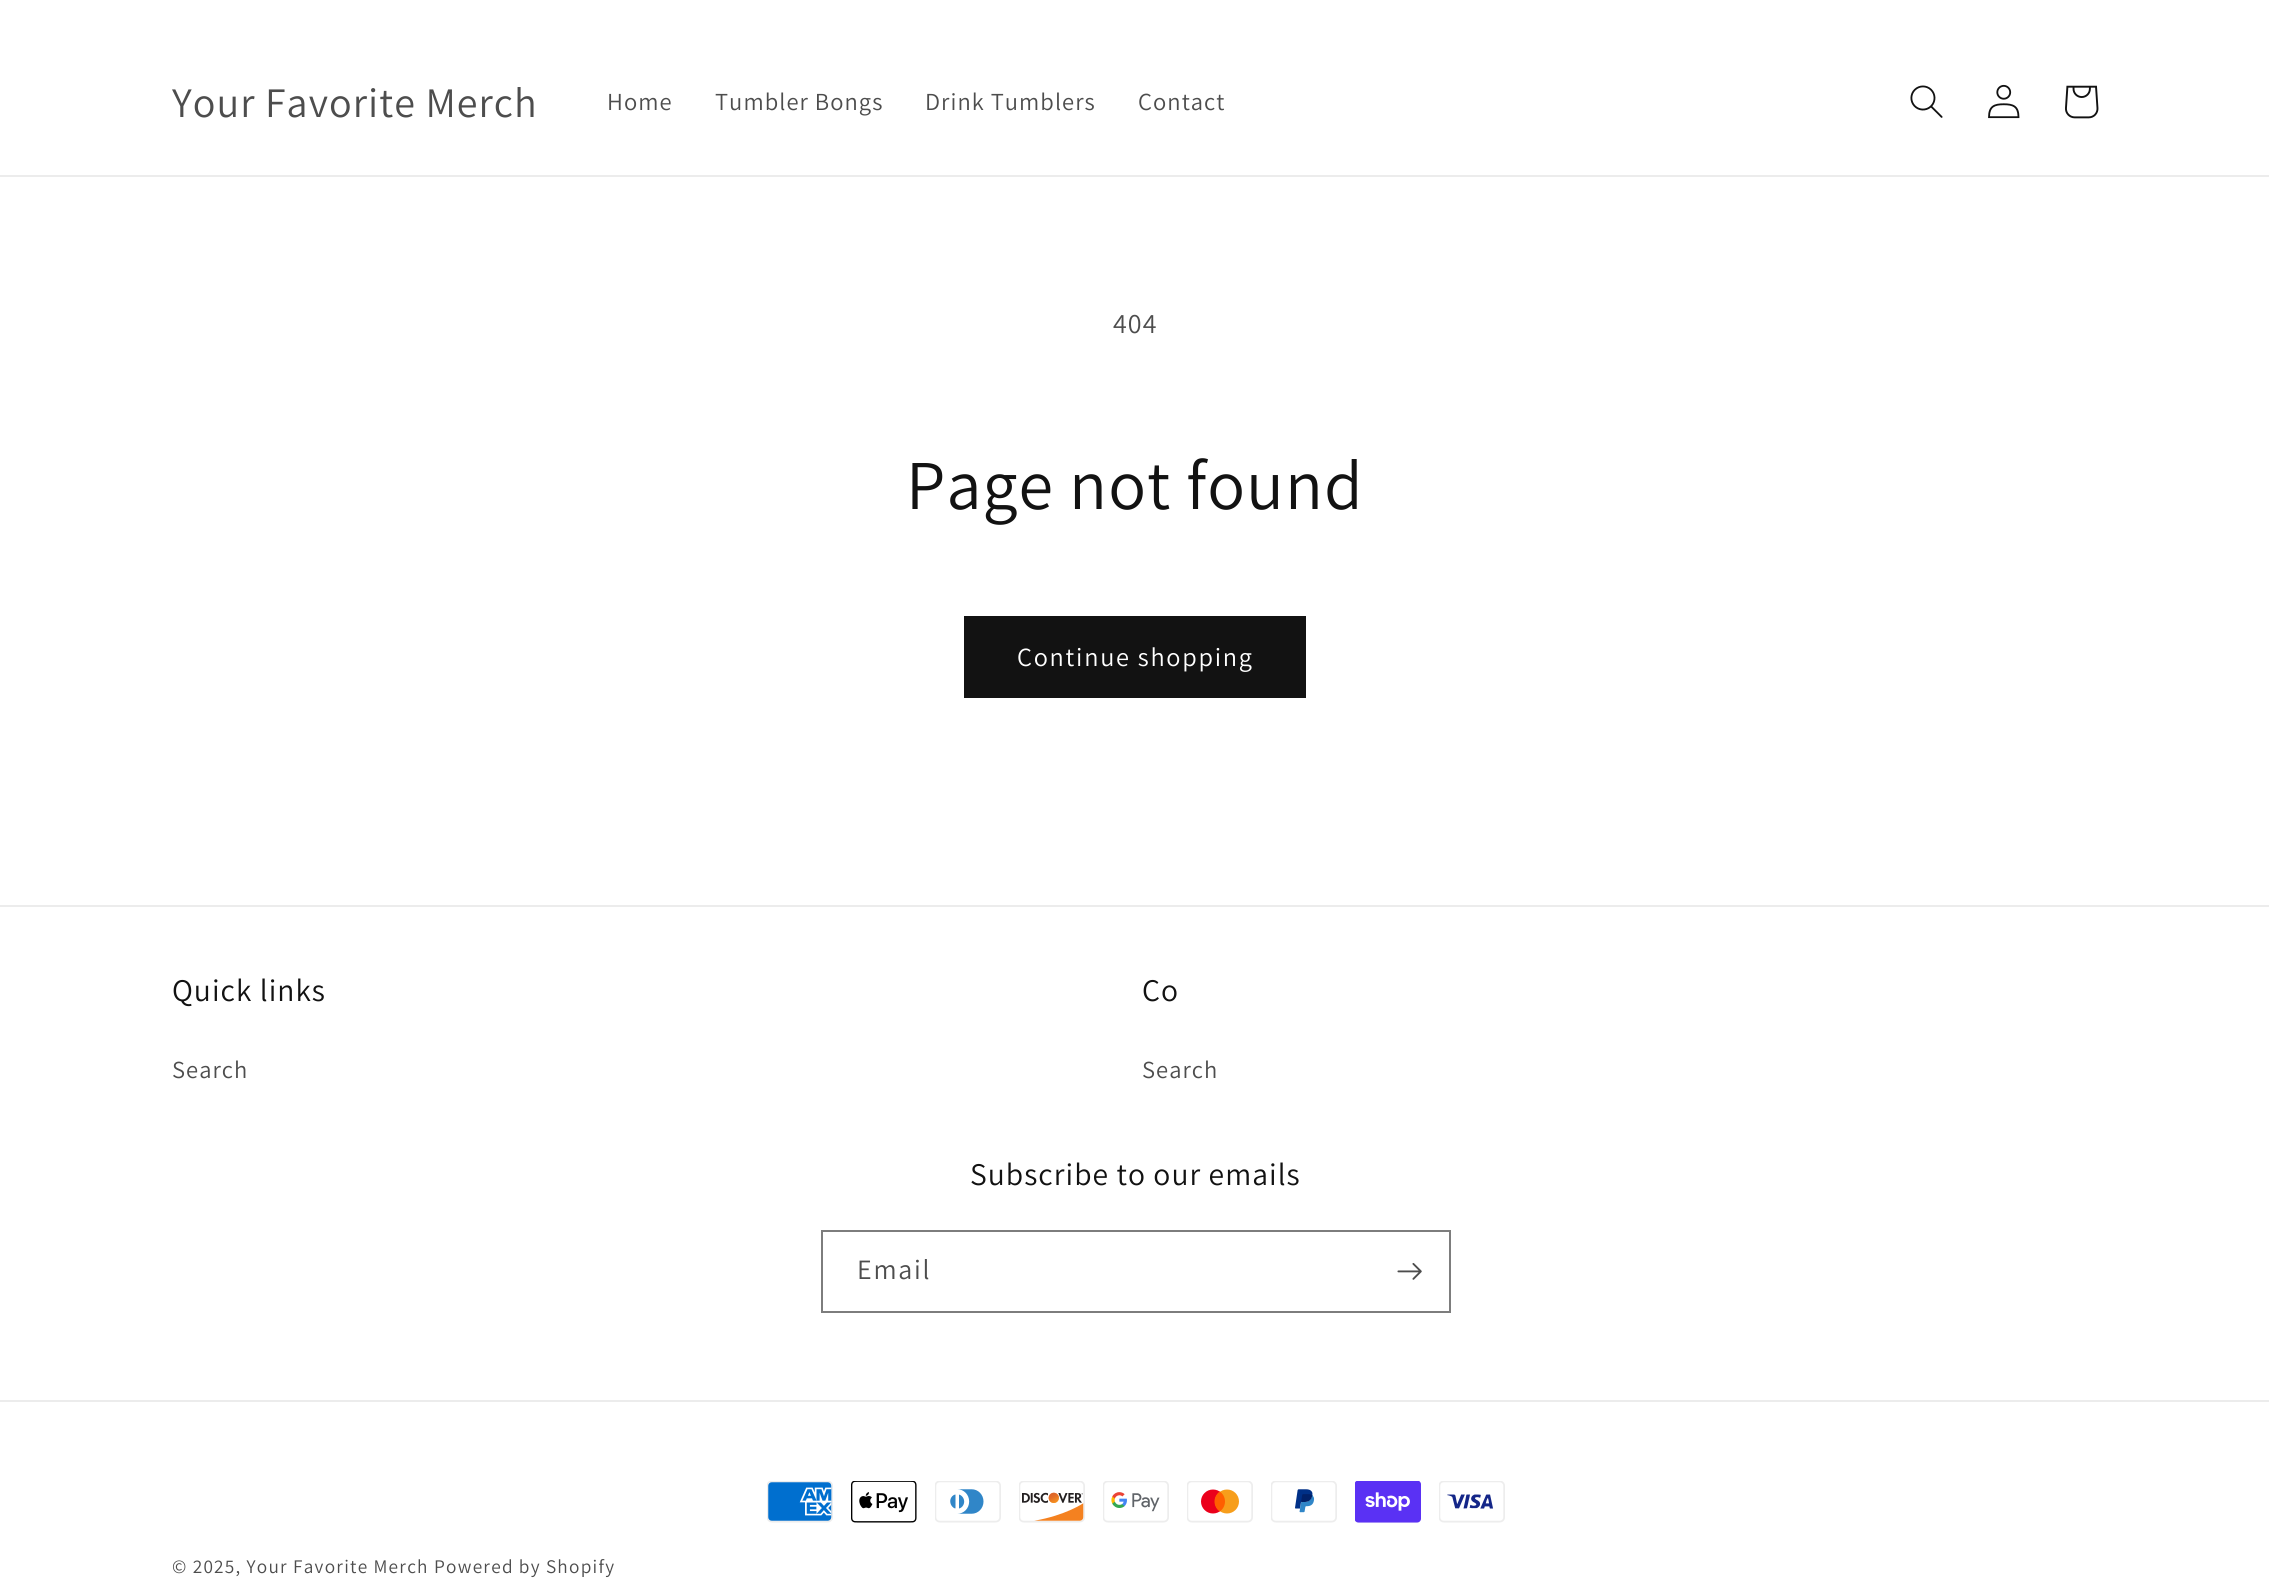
import math
import cairo

surface = cairo.ImageSurface(cairo.FORMAT_RGB24, 2269, 1586)
ctx = cairo.Context(surface)
options = cairo.FontOptions()
options.set_hint_metrics(cairo.HINT_METRICS_OFF)
options.set_hint_style(cairo.HINT_STYLE_NONE)
ctx.set_font_options(options)
ctx.set_miter_limit(4)


def set_color(code):
    ctx.set_source_rgb(*(v / 255 for v in bytes.fromhex(code[-6:])))


def draw_spaced(x, y, s, letter, word):
    ctx.move_to(x, y)
    for ch in s:
        ctx.show_text(ch)
        ctx.rel_move_to(letter + word * (ch == ' '), 0)


def fill_rect(x, y, w, h, color):
    set_color(color)
    ctx.rectangle(x, y, w, h)
    ctx.fill()


def draw_image(path, x, y, w, h):
    ctx.save()
    ctx.set_source_surface(cairo.ImageSurface.create_from_png(path), x, y)
    ctx.rectangle(x, y, w, h)
    ctx.fill()
    ctx.restore()


set_color("#ffffff")
ctx.paint()
fill_rect(0, 175, 2269, 2, "#ececec")
ctx.select_font_face("Assistant")
ctx.set_font_size(42)
set_color("#4d4d4d")
draw_spaced(172, 117, "Your Favorite Merch", 1.05, 0)
ctx.set_font_size(24.5)
draw_spaced(607, 110, "Home", 1.05, 0)
draw_spaced(715, 110, "Tumbler Bongs", 1.05, 0)
draw_spaced(925, 110, "Drink Tumblers", 1.05, 0)
draw_spaced(1138, 110, "Contact", 1.05, 0)
draw_image("assets/img1.png", 1910, 85, 33, 33)
draw_image("assets/img2.png", 1988, 84, 32, 35)
draw_image("assets/img3.png", 2065, 85, 34, 34)
ctx.set_font_size(28)
draw_spaced(1113, 333, "404", 1.05, 0)
ctx.set_font_size(70)
set_color("#121212")
draw_spaced(906, 509, "Page not found", 1.05, 0)
fill_rect(964, 616, 342, 82, "#121212")
ctx.set_font_size(26.25)
set_color("#ffffff")
draw_spaced(1017, 666, "Continue shopping", 1.75, 0)
fill_rect(0, 905, 2269, 2, "#ececec")
ctx.set_font_size(31.5)
set_color("#121212")
draw_spaced(172, 1001, "Quick links", 1.05, 0)
ctx.set_font_size(24.5)
set_color("#4d4d4d")
draw_spaced(172, 1078, "Search", 1.05, 0)
ctx.set_font_size(31.5)
set_color("#121212")
draw_spaced(1142, 1001, "Co", 1.05, 0)
ctx.set_font_size(24.5)
set_color("#4d4d4d")
draw_spaced(1142, 1078, "Search", 1.05, 0)
ctx.set_font_size(31.5)
set_color("#121212")
draw_spaced(970, 1185, "Subscribe to our emails", 1.05, 0)
ctx.rectangle(822, 1231, 628, 81)
set_color("#7d7d7d")
ctx.stroke()
ctx.set_font_size(28)
set_color("#4d4d4d")
draw_spaced(857, 1279, "Email", 1.75, 0)
draw_image("assets/img4.png", 1397, 1263, 25, 17)
fill_rect(0, 1400, 2269, 2, "#ececec")
draw_image("assets/img5.png", 767, 1481, 66, 42)
draw_image("assets/img6.png", 851, 1481, 66, 42)
draw_image("assets/img7.png", 935, 1481, 66, 42)
draw_image("assets/img8.png", 1019, 1481, 66, 42)
draw_image("assets/img9.png", 1103, 1481, 66, 42)
draw_image("assets/img10.png", 1187, 1481, 66, 42)
draw_image("assets/img11.png", 1271, 1481, 66, 42)
draw_image("assets/img12.png", 1355, 1481, 66, 42)
draw_image("assets/img13.png", 1439, 1481, 66, 42)
ctx.set_font_size(19.25)
set_color("#4d4d4d")
draw_spaced(172, 1573, "© 2025, Your Favorite Merch", 1.25, 0)
draw_spaced(434, 1573, "Powered by Shopify", 1.25, 0)
surface.write_to_png("output.png")
